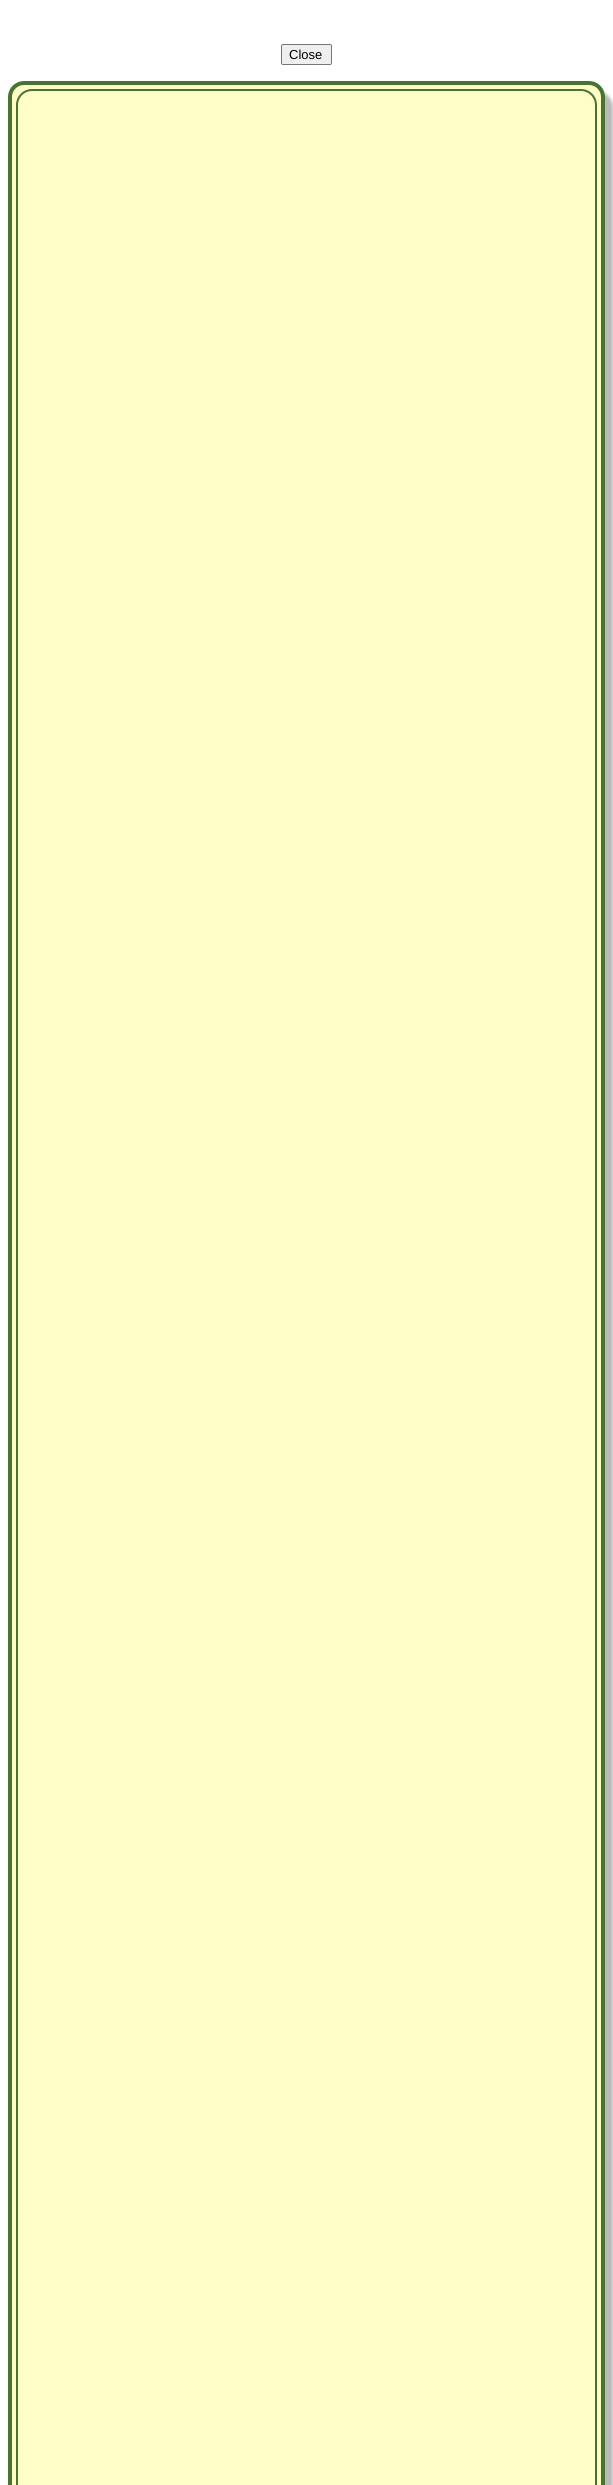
import math
import cairo

surface = cairo.ImageSurface(cairo.FORMAT_RGB24, 613, 2485)
ctx = cairo.Context(surface)
options = cairo.FontOptions()
options.set_hint_metrics(cairo.HINT_METRICS_OFF)
options.set_hint_style(cairo.HINT_STYLE_NONE)
ctx.set_font_options(options)
ctx.set_miter_limit(4)


def set_color(code):
    ctx.set_source_rgb(*(v / 255 for v in bytes.fromhex(code[-6:])))


def draw_text(x, y, s, family, size, color, bold=False, italic=False):
    ctx.select_font_face(family, cairo.FONT_SLANT_ITALIC if italic else cairo.FONT_SLANT_NORMAL, cairo.FONT_WEIGHT_BOLD if bold else cairo.FONT_WEIGHT_NORMAL)
    ctx.set_font_size(size)
    set_color(color)
    ctx.move_to(x, y)
    ctx.show_text(s)


def rounded_rect(x, y, w, h, r):
    ctx.new_sub_path()
    for i, (u, v) in enumerate([(x + w - r, y + h - r), (x + r, y + h - r), (x + r, y + r), (x + w - r, y + r)]):
        ctx.arc(u, v, r, i * math.pi / 2, (i + 1) * math.pi / 2)
    ctx.close_path()


def draw_shadow(x, y, w, h, r, blur, alpha):
    ctx.push_group_with_content(cairo.CONTENT_ALPHA)
    ctx.set_operator(cairo.OPERATOR_SOURCE)
    for i in range(15, -16, -2):
        e = blur * i / 6
        if min(w, h) + 2 * e > 0:
            ctx.set_source_rgba(0, 0, 0, alpha * math.erfc((i - 1) / 8.5) / 2)
            rounded_rect(x - e, y - e, w + 2 * e, h + 2 * e, max(0, min(r + e + blur * .6, min(w, h) / 2 + e)))
            ctx.fill()
    ctx.mask(ctx.pop_group())


set_color("#ffffff")
ctx.paint()
set_color("#efefef")
rounded_rect(281.5, 44.5, 50, 20, 1.5)
ctx.fill_preserve()
set_color("#767676")
ctx.set_line_width(1)
ctx.stroke()
draw_text(289, 59, "Close", "Liberation Sans", 13, "#000000")
set_color("#505050")
draw_shadow(16, 91, 597, 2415, 16, 1.5, 0.4)
set_color("#fffdc8")
rounded_rect(10, 83, 593, 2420, 14)
ctx.fill_preserve()
set_color("#4a7331")
ctx.set_line_width(4)
ctx.stroke()
rounded_rect(17, 90, 579, 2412, 15)
ctx.set_line_width(2)
ctx.stroke()
surface.write_to_png("output.png")
